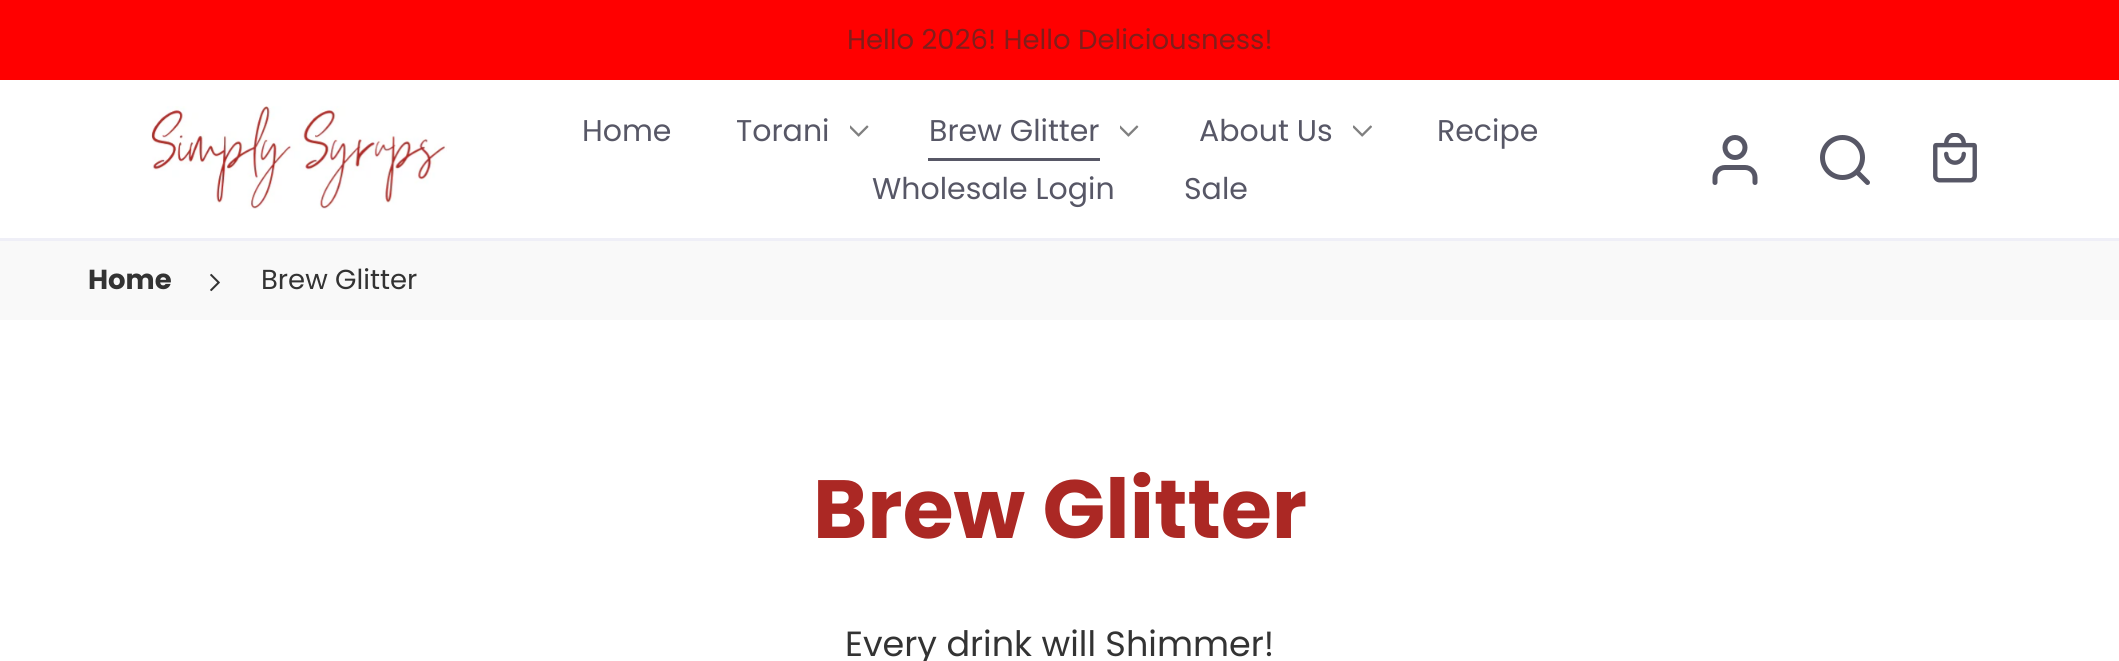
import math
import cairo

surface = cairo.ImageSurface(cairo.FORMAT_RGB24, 2119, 661)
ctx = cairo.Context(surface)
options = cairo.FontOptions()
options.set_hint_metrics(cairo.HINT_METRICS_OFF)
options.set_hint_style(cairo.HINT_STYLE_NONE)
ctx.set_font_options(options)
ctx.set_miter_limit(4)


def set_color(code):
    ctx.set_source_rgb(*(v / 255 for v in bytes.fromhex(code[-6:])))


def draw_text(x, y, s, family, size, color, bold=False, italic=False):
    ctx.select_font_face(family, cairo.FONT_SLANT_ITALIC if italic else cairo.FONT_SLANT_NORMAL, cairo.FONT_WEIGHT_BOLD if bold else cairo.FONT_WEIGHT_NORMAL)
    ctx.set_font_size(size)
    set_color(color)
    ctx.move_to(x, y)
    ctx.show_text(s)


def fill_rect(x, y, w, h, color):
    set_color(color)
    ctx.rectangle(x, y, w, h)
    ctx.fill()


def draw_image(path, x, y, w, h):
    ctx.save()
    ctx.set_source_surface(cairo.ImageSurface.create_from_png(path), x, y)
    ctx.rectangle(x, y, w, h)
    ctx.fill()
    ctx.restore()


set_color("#ffffff")
ctx.paint()
fill_rect(0, 0, 2119, 80, "#ff0000")
draw_text(847, 49, "Hello 2026! Hello Deliciousness!", "Poppins", 27.5, "#811e1b")
fill_rect(0, 238, 2119, 3, "#efeff7")
draw_image("assets/img1.png", 151, 106, 296, 103)
draw_text(582, 141, "Home", "Poppins", 30, "#575766")
draw_text(736, 141, "Torani", "Poppins", 30, "#575766")
draw_image("assets/img2.png", 850, 125, 19, 12)
draw_text(929, 141, "Brew Glitter", "Poppins", 30, "#575766")
fill_rect(928, 158, 172, 3, "#575766")
draw_image("assets/img3.png", 1120, 125, 19, 12)
draw_text(1199, 141, "About Us", "Poppins", 30, "#575766")
draw_image("assets/img4.png", 1353, 125, 19, 12)
draw_text(1437, 141, "Recipe", "Poppins", 30, "#575766")
draw_text(872, 199, "Wholesale Login", "Poppins", 30, "#575766")
draw_text(1184, 199, "Sale", "Poppins", 30, "#575766")
draw_image("assets/img5.png", 1712, 135, 46, 50)
draw_image("assets/img6.png", 1820, 135, 50, 50)
draw_image("assets/img7.png", 1933, 133, 44, 50)
fill_rect(0, 241, 2119, 79, "#f9f9f9")
draw_text(88, 289, "Home", "Poppins", 27.5, "#333333", bold=True)
draw_image("assets/img8.png", 210, 273, 10, 19)
draw_text(261, 289, "Brew Glitter", "Poppins", 27.5, "#333333")
draw_text(813, 538, "Brew Glitter", "Poppins", 82.5, "#ab2824", bold=True)
draw_text(845, 656, "Every drink will Shimmer!", "Poppins", 35, "#333333")
surface.write_to_png("output.png")
